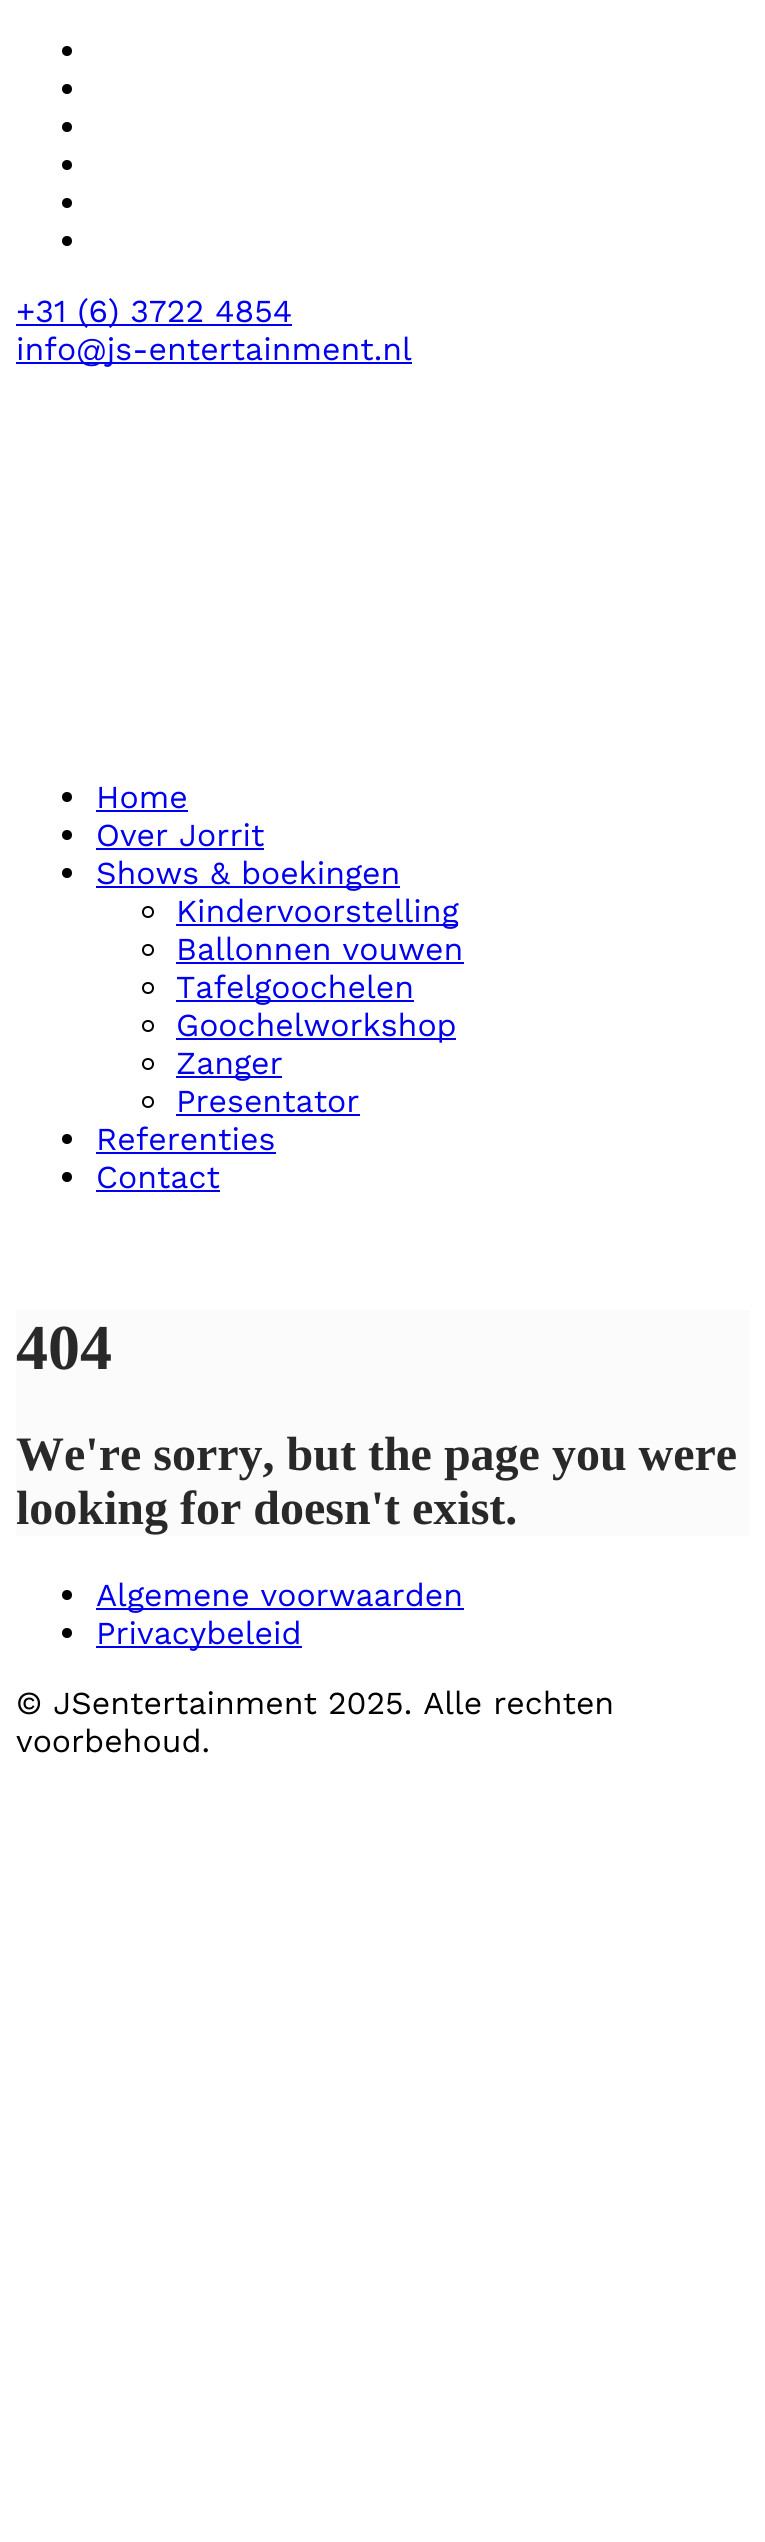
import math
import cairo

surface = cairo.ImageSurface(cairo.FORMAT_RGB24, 765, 2542)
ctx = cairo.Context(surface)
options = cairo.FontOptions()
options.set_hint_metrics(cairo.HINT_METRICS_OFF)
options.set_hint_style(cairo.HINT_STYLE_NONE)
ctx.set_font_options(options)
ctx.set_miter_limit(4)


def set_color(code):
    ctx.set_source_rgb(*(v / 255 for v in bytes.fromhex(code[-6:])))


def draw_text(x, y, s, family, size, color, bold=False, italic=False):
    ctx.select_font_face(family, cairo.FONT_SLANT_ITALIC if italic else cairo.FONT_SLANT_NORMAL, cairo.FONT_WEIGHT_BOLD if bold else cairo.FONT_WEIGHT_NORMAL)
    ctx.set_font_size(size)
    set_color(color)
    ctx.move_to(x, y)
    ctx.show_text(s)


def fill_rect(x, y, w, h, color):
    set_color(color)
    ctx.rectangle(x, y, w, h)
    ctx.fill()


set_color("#ffffff")
ctx.paint()
set_color("#000000")
ctx.arc(67, 51, 5, 0, 2 * math.pi)
ctx.fill()
ctx.arc(67, 89, 5, 0, 2 * math.pi)
ctx.fill()
ctx.arc(67, 127, 5, 0, 2 * math.pi)
ctx.fill()
ctx.arc(67, 165, 5, 0, 2 * math.pi)
ctx.fill()
ctx.arc(67, 203, 5, 0, 2 * math.pi)
ctx.fill()
ctx.arc(67, 241, 5, 0, 2 * math.pi)
ctx.fill()
fill_rect(16, 324, 276, 2, "#0000ee")
draw_text(16, 322, "+31 (6) 3722 4854", "Work Sans", 32, "#0000ee")
fill_rect(16, 362, 396, 2, "#0000ee")
draw_text(16, 360, "info@js-entertainment.nl", "Work Sans", 32, "#0000ee")
set_color("#000000")
ctx.new_path()
ctx.arc(67, 797, 5, 0, 2 * math.pi)
ctx.fill()
draw_text(96, 808, "Home", "Work Sans", 32, "#0000ee")
fill_rect(96, 810, 92, 2, "#0000ee")
set_color("#000000")
ctx.new_path()
ctx.arc(67, 835, 5, 0, 2 * math.pi)
ctx.fill()
draw_text(96, 846, "Over Jorrit", "Work Sans", 32, "#0000ee")
fill_rect(96, 848, 168, 2, "#0000ee")
set_color("#000000")
ctx.new_path()
ctx.arc(67, 873, 5, 0, 2 * math.pi)
ctx.fill()
fill_rect(96, 886, 304, 2, "#0000ee")
draw_text(96, 884, "Shows & boekingen", "Work Sans", 32, "#0000ee")
ctx.new_path()
ctx.arc(148, 912, 5, 0, 2 * math.pi)
set_color("#000000")
ctx.stroke()
fill_rect(176, 924, 282, 2, "#0000ee")
draw_text(176, 922, "Kindervoorstelling", "Work Sans", 32, "#0000ee")
ctx.new_path()
ctx.arc(148, 950, 5, 0, 2 * math.pi)
set_color("#000000")
ctx.stroke()
draw_text(176, 960, "Ballonnen vouwen", "Work Sans", 32, "#0000ee")
fill_rect(176, 962, 288, 2, "#0000ee")
ctx.new_path()
ctx.arc(148, 988, 5, 0, 2 * math.pi)
set_color("#000000")
ctx.stroke()
fill_rect(176, 1000, 238, 2, "#0000ee")
draw_text(176, 998, "Tafelgoochelen", "Work Sans", 32, "#0000ee")
ctx.new_path()
ctx.arc(148, 1026, 5, 0, 2 * math.pi)
set_color("#000000")
ctx.stroke()
fill_rect(176, 1038, 280, 2, "#0000ee")
draw_text(176, 1036, "Goochelworkshop", "Work Sans", 32, "#0000ee")
ctx.new_path()
ctx.arc(148, 1064, 5, 0, 2 * math.pi)
set_color("#000000")
ctx.stroke()
fill_rect(176, 1076, 106, 2, "#0000ee")
draw_text(176, 1074, "Zanger", "Work Sans", 32, "#0000ee")
ctx.new_path()
ctx.arc(148, 1102, 5, 0, 2 * math.pi)
set_color("#000000")
ctx.stroke()
draw_text(176, 1112, "Presentator", "Work Sans", 32, "#0000ee")
fill_rect(176, 1114, 184, 2, "#0000ee")
set_color("#000000")
ctx.new_path()
ctx.arc(67, 1139, 5, 0, 2 * math.pi)
ctx.fill()
draw_text(96, 1150, "Referenties", "Work Sans", 32, "#0000ee")
fill_rect(96, 1152, 180, 2, "#0000ee")
set_color("#000000")
ctx.new_path()
ctx.arc(67, 1177, 5, 0, 2 * math.pi)
ctx.fill()
draw_text(96, 1188, "Contact", "Work Sans", 32, "#0000ee")
fill_rect(96, 1190, 124, 2, "#0000ee")
fill_rect(16, 1310, 734, 226, "#fbfbfb")
draw_text(16, 1369, "404", "Liberation Serif", 64, "#292929", bold=True)
draw_text(16, 1470, "We're sorry, but the page you were", "Liberation Serif", 48, "#292929", bold=True)
draw_text(16, 1524, "looking for doesn't exist.", "Liberation Serif", 48, "#292929", bold=True)
set_color("#000000")
ctx.new_path()
ctx.arc(67, 1595, 5, 0, 2 * math.pi)
ctx.fill()
fill_rect(96, 1608, 368, 2, "#0000ee")
draw_text(96, 1606, "Algemene voorwaarden", "Work Sans", 32, "#0000ee")
set_color("#000000")
ctx.new_path()
ctx.arc(67, 1633, 5, 0, 2 * math.pi)
ctx.fill()
fill_rect(96, 1646, 206, 2, "#0000ee")
draw_text(96, 1644, "Privacybeleid", "Work Sans", 32, "#0000ee")
draw_text(16, 1714, "© JSentertainment 2025. Alle rechten", "Work Sans", 32, "#000000")
draw_text(16, 1752, "voorbehoud.", "Work Sans", 32, "#000000")
surface.write_to_png("output.png")
